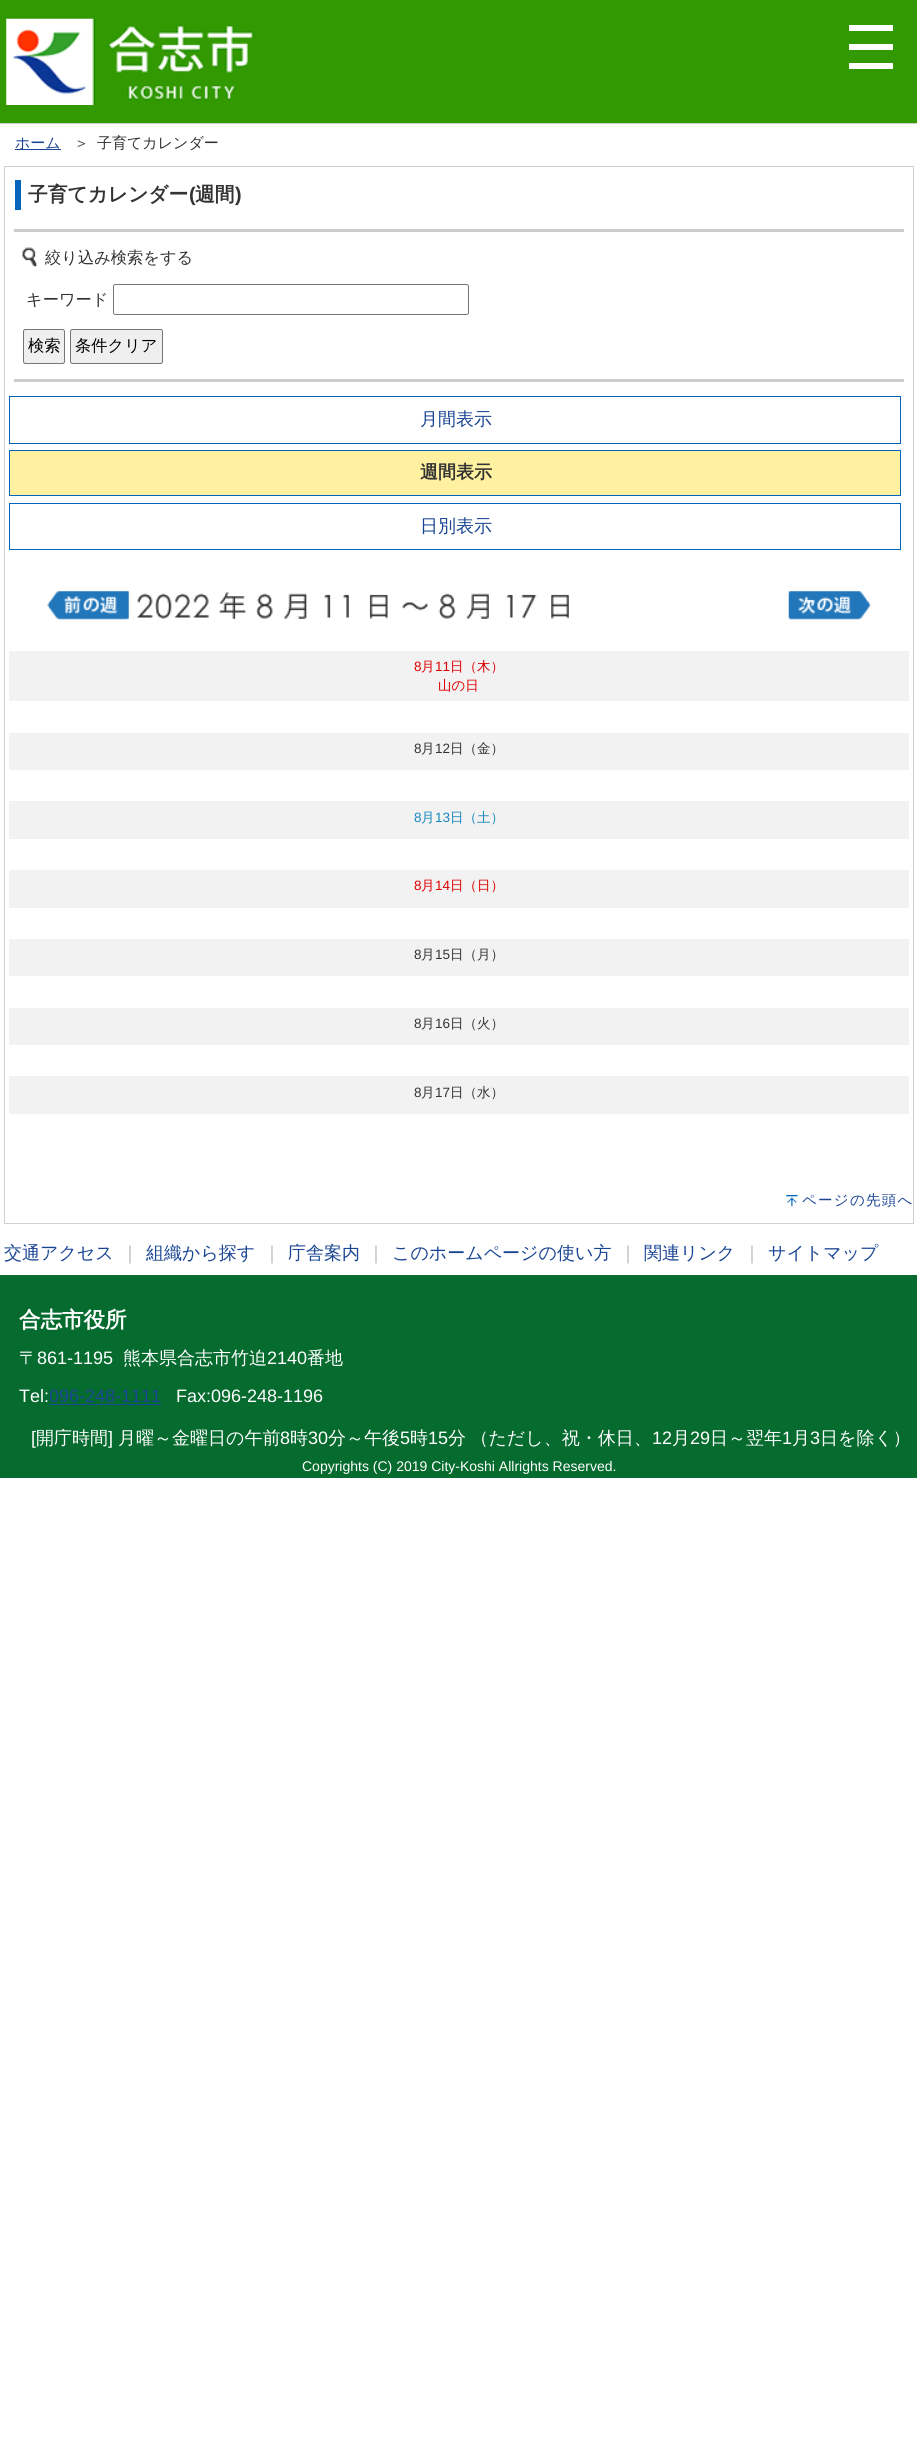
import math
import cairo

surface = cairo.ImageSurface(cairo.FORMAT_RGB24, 917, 2446)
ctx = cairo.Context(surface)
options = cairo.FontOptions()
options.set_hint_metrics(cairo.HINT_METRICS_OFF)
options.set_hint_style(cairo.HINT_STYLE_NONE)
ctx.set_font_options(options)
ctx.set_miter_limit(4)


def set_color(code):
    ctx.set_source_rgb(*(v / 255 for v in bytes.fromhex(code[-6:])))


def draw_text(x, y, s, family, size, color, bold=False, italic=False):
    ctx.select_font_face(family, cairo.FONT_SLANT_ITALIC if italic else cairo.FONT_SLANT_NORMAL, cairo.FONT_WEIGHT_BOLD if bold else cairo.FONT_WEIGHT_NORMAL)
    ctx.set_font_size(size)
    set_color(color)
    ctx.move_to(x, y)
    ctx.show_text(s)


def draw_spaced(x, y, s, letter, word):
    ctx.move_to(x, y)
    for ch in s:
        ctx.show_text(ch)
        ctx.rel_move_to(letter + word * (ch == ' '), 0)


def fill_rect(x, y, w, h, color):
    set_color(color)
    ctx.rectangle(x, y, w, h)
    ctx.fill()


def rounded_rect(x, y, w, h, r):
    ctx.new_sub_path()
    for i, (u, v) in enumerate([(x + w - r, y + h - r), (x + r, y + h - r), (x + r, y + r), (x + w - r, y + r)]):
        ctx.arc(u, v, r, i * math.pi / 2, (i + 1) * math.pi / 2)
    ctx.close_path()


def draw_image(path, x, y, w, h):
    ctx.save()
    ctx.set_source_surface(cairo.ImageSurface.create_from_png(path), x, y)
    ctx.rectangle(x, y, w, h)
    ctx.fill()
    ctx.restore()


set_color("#ffffff")
ctx.paint()
fill_rect(0, 0, 917, 123, "#329900")
fill_rect(0, 123, 917, 1, "#cccccc")
draw_image("assets/img1.png", 6, 18, 248, 87)
fill_rect(849, 25, 44, 6, "#ffffff")
fill_rect(849, 44, 44, 6, "#ffffff")
fill_rect(849, 63, 44, 6, "#ffffff")
fill_rect(15, 149, 46, 1, "#194593")
draw_text(15, 148, "ホーム", "WenQuanYi Zen Hei Medium", 15, "#194593")
draw_text(74, 148, "＞", "WenQuanYi Zen Hei Medium", 15, "#333333")
draw_text(97, 148, "子育てカレンダー", "WenQuanYi Zen Hei Medium", 15, "#333333")
ctx.rectangle(4.5, 166.5, 909, 1057)
set_color("#d1d1d1")
ctx.set_line_width(1)
ctx.stroke()
fill_rect(15, 180, 6, 30, "#0065bd")
draw_text(28, 201, "子育てカレンダー", "WenQuanYi Zen Hei", 19.75, "#333333", bold=True)
draw_text(189, 201, "(", "Liberation Sans", 19.75, "#333333", bold=True)
draw_text(195, 201, "週間", "WenQuanYi Zen Hei", 19.75, "#333333", bold=True)
draw_text(235, 201, ")", "Liberation Sans", 19.75, "#333333", bold=True)
fill_rect(14, 229, 890, 3, "#cccccc")
fill_rect(14, 379, 890, 3, "#cccccc")
draw_image("assets/img2.png", 22, 247, 15, 20)
draw_text(45, 263, "絞り込み検索をする", "WenQuanYi Zen Hei Medium", 16.25, "#333333")
draw_text(26, 305, "キーワード", "WenQuanYi Zen Hei Medium", 16.25, "#333333")
rounded_rect(113.5, 284.5, 355, 30, 2)
set_color("#767676")
ctx.stroke()
set_color("#efefef")
rounded_rect(23.5, 329.5, 41, 34, 2)
ctx.fill_preserve()
set_color("#767676")
ctx.stroke()
draw_text(28, 351, "検索", "WenQuanYi Zen Hei Medium", 16.25, "#000000")
set_color("#efefef")
rounded_rect(70.5, 329.5, 92, 34, 2)
ctx.fill_preserve()
set_color("#767676")
ctx.stroke()
draw_text(75, 351, "条件クリア", "WenQuanYi Zen Hei Medium", 16.25, "#000000")
ctx.rectangle(9.5, 396.5, 891, 47)
set_color("#0065bd")
ctx.stroke()
draw_text(420, 425, "月間表示", "WenQuanYi Zen Hei Medium", 18, "#194593")
set_color("#fff1a0")
ctx.rectangle(9.5, 450.5, 891, 45)
ctx.fill_preserve()
set_color("#0065bd")
ctx.stroke()
draw_text(420, 478, "週間表示", "WenQuanYi Zen Hei", 18, "#333333", bold=True)
ctx.rectangle(9.5, 503.5, 891, 46)
set_color("#0065bd")
ctx.stroke()
draw_text(420, 532, "日別表示", "WenQuanYi Zen Hei Medium", 18, "#194593")
draw_image("assets/img3.png", 47, 591, 82, 29)
draw_image("assets/img4.png", 137, 593, 16, 25)
draw_image("assets/img5.png", 155, 593, 17, 26)
draw_image("assets/img6.png", 174, 593, 17, 25)
draw_image("assets/img7.png", 193, 593, 16, 25)
draw_image("assets/img8.png", 218, 592, 29, 27)
draw_image("assets/img9.png", 256, 593, 17, 26)
draw_image("assets/img10.png", 283, 593, 24, 26)
draw_image("assets/img11.png", 323, 594, 8, 24)
draw_image("assets/img12.png", 342, 594, 7, 24)
draw_image("assets/img13.png", 369, 594, 19, 25)
draw_image("assets/img14.png", 402, 602, 26, 9)
draw_image("assets/img15.png", 438, 593, 18, 26)
draw_image("assets/img16.png", 466, 593, 23, 26)
draw_image("assets/img17.png", 506, 594, 7, 24)
draw_image("assets/img18.png", 521, 594, 16, 25)
draw_image("assets/img19.png", 551, 594, 18, 25)
draw_image("assets/img20.png", 788, 591, 82, 29)
fill_rect(9, 651, 900, 50, "#f2f2f2")
draw_text(414, 671, "8", "Liberation Sans", 13.5, "#dd0000")
draw_text(421, 671, "月", "WenQuanYi Zen Hei Medium", 13.5, "#dd0000")
draw_text(435, 671, "11", "Liberation Sans", 13.5, "#dd0000")
draw_text(450, 671, "日（木）", "WenQuanYi Zen Hei Medium", 13.5, "#dd0000")
draw_text(438, 690, "山の日", "WenQuanYi Zen Hei Medium", 13.5, "#dd0000")
fill_rect(9, 733, 900, 37, "#f2f2f2")
draw_text(414, 753, "8", "Liberation Sans", 13.5, "#333333")
draw_text(421, 753, "月", "WenQuanYi Zen Hei Medium", 13.5, "#333333")
draw_text(435, 753, "12", "Liberation Sans", 13.5, "#333333")
draw_text(450, 753, "日（金）", "WenQuanYi Zen Hei Medium", 13.5, "#333333")
fill_rect(9, 801, 900, 38, "#f2f2f2")
draw_text(414, 822, "8", "Liberation Sans", 13.5, "#1587bd")
draw_text(421, 822, "月", "WenQuanYi Zen Hei Medium", 13.5, "#1587bd")
draw_text(435, 822, "13", "Liberation Sans", 13.5, "#1587bd")
draw_text(450, 822, "日（土）", "WenQuanYi Zen Hei Medium", 13.5, "#1587bd")
fill_rect(9, 870, 900, 38, "#f2f2f2")
draw_text(414, 890, "8", "Liberation Sans", 13.5, "#dd0000")
draw_text(421, 890, "月", "WenQuanYi Zen Hei Medium", 13.5, "#dd0000")
draw_text(435, 890, "14", "Liberation Sans", 13.5, "#dd0000")
draw_text(450, 890, "日（日）", "WenQuanYi Zen Hei Medium", 13.5, "#dd0000")
fill_rect(9, 939, 900, 37, "#f2f2f2")
draw_text(414, 959, "8", "Liberation Sans", 13.5, "#333333")
draw_text(421, 959, "月", "WenQuanYi Zen Hei Medium", 13.5, "#333333")
draw_text(435, 959, "15", "Liberation Sans", 13.5, "#333333")
draw_text(450, 959, "日（月）", "WenQuanYi Zen Hei Medium", 13.5, "#333333")
fill_rect(9, 1008, 900, 37, "#f2f2f2")
draw_text(414, 1028, "8", "Liberation Sans", 13.5, "#333333")
draw_text(421, 1028, "月", "WenQuanYi Zen Hei Medium", 13.5, "#333333")
draw_text(435, 1028, "16", "Liberation Sans", 13.5, "#333333")
draw_text(450, 1028, "日（火）", "WenQuanYi Zen Hei Medium", 13.5, "#333333")
fill_rect(9, 1076, 900, 38, "#f2f2f2")
draw_text(414, 1097, "8", "Liberation Sans", 13.5, "#333333")
draw_text(421, 1097, "月", "WenQuanYi Zen Hei Medium", 13.5, "#333333")
draw_text(435, 1097, "17", "Liberation Sans", 13.5, "#333333")
draw_text(450, 1097, "日（水）", "WenQuanYi Zen Hei Medium", 13.5, "#333333")
draw_image("assets/img21.png", 786, 1195, 12, 12)
ctx.set_font_size(14.5)
set_color("#194593")
draw_spaced(802, 1205, "ページの先頭へ", 1.25, 0)
draw_text(4, 1259, "交通アクセス", "WenQuanYi Zen Hei Medium", 18, "#194593")
draw_text(121, 1259, "｜", "WenQuanYi Zen Hei Medium", 18, "#afafb0")
draw_text(146, 1259, "組織から探す", "WenQuanYi Zen Hei Medium", 18, "#194593")
draw_text(263, 1259, "｜", "WenQuanYi Zen Hei Medium", 18, "#afafb0")
draw_text(288, 1259, "庁舎案内", "WenQuanYi Zen Hei Medium", 18, "#194593")
draw_text(367, 1259, "｜", "WenQuanYi Zen Hei Medium", 18, "#afafb0")
draw_text(392, 1259, "このホームページの使い方", "WenQuanYi Zen Hei Medium", 18, "#194593")
draw_text(619, 1259, "｜", "WenQuanYi Zen Hei Medium", 18, "#afafb0")
draw_text(644, 1259, "関連リンク", "WenQuanYi Zen Hei Medium", 18, "#194593")
draw_text(743, 1259, "｜", "WenQuanYi Zen Hei Medium", 18, "#afafb0")
draw_text(768, 1259, "サイトマップ", "WenQuanYi Zen Hei Medium", 18, "#194593")
fill_rect(0, 1275, 917, 203, "#056b2e")
draw_text(19, 1327, "合志市役所", "WenQuanYi Zen Hei", 21.5, "#ffffff", bold=True)
draw_text(19, 1364, "〒", "WenQuanYi Zen Hei Medium", 18, "#ffffff")
draw_text(37, 1364, "861-1195", "Liberation Sans", 18, "#ffffff")
draw_text(123, 1364, "熊本県合志市竹迫", "WenQuanYi Zen Hei Medium", 18, "#ffffff")
draw_text(267, 1364, "2140", "Liberation Sans", 18, "#ffffff")
draw_text(307, 1364, "番地", "WenQuanYi Zen Hei Medium", 18, "#ffffff")
draw_text(19, 1402, "Tel:", "Liberation Sans", 18, "#ffffff")
draw_text(49, 1402, "096-248-1111", "Liberation Sans", 18, "#194593")
fill_rect(49, 1404, 112, 1, "#194593")
draw_text(176, 1402, "Fax:096-248-1196", "Liberation Sans", 18, "#ffffff")
draw_text(31, 1444, "[", "Liberation Sans", 18, "#ffffff")
draw_text(36, 1444, "開庁時間", "WenQuanYi Zen Hei Medium", 18, "#ffffff")
draw_text(108, 1444, "]", "Liberation Sans", 18, "#ffffff")
draw_text(118, 1444, "月曜～金曜日の午前", "WenQuanYi Zen Hei Medium", 18, "#ffffff")
draw_text(280, 1444, "8", "Liberation Sans", 18, "#ffffff")
draw_text(290, 1444, "時", "WenQuanYi Zen Hei Medium", 18, "#ffffff")
draw_text(308, 1444, "30", "Liberation Sans", 18, "#ffffff")
draw_text(328, 1444, "分～午後", "WenQuanYi Zen Hei Medium", 18, "#ffffff")
draw_text(400, 1444, "5", "Liberation Sans", 18, "#ffffff")
draw_text(410, 1444, "時", "WenQuanYi Zen Hei Medium", 18, "#ffffff")
draw_text(428, 1444, "15", "Liberation Sans", 18, "#ffffff")
ctx.select_font_face("WenQuanYi Zen Hei Medium")
draw_spaced(448, 1444, "分 （ただし、祝・休日、", 0, -1)
draw_text(652, 1444, "12", "Liberation Sans", 18, "#ffffff")
draw_text(672, 1444, "月", "WenQuanYi Zen Hei Medium", 18, "#ffffff")
draw_text(690, 1444, "29", "Liberation Sans", 18, "#ffffff")
draw_text(710, 1444, "日～翌年", "WenQuanYi Zen Hei Medium", 18, "#ffffff")
draw_text(782, 1444, "1", "Liberation Sans", 18, "#ffffff")
draw_text(792, 1444, "月", "WenQuanYi Zen Hei Medium", 18, "#ffffff")
draw_text(810, 1444, "3", "Liberation Sans", 18, "#ffffff")
draw_text(820, 1444, "日を除く）", "WenQuanYi Zen Hei Medium", 18, "#ffffff")
draw_text(302, 1471, "Copyrights (C) 2019 City-Koshi Allrights Reserved.", "Liberation Sans", 14, "#ffffff")
surface.write_to_png("output.png")
